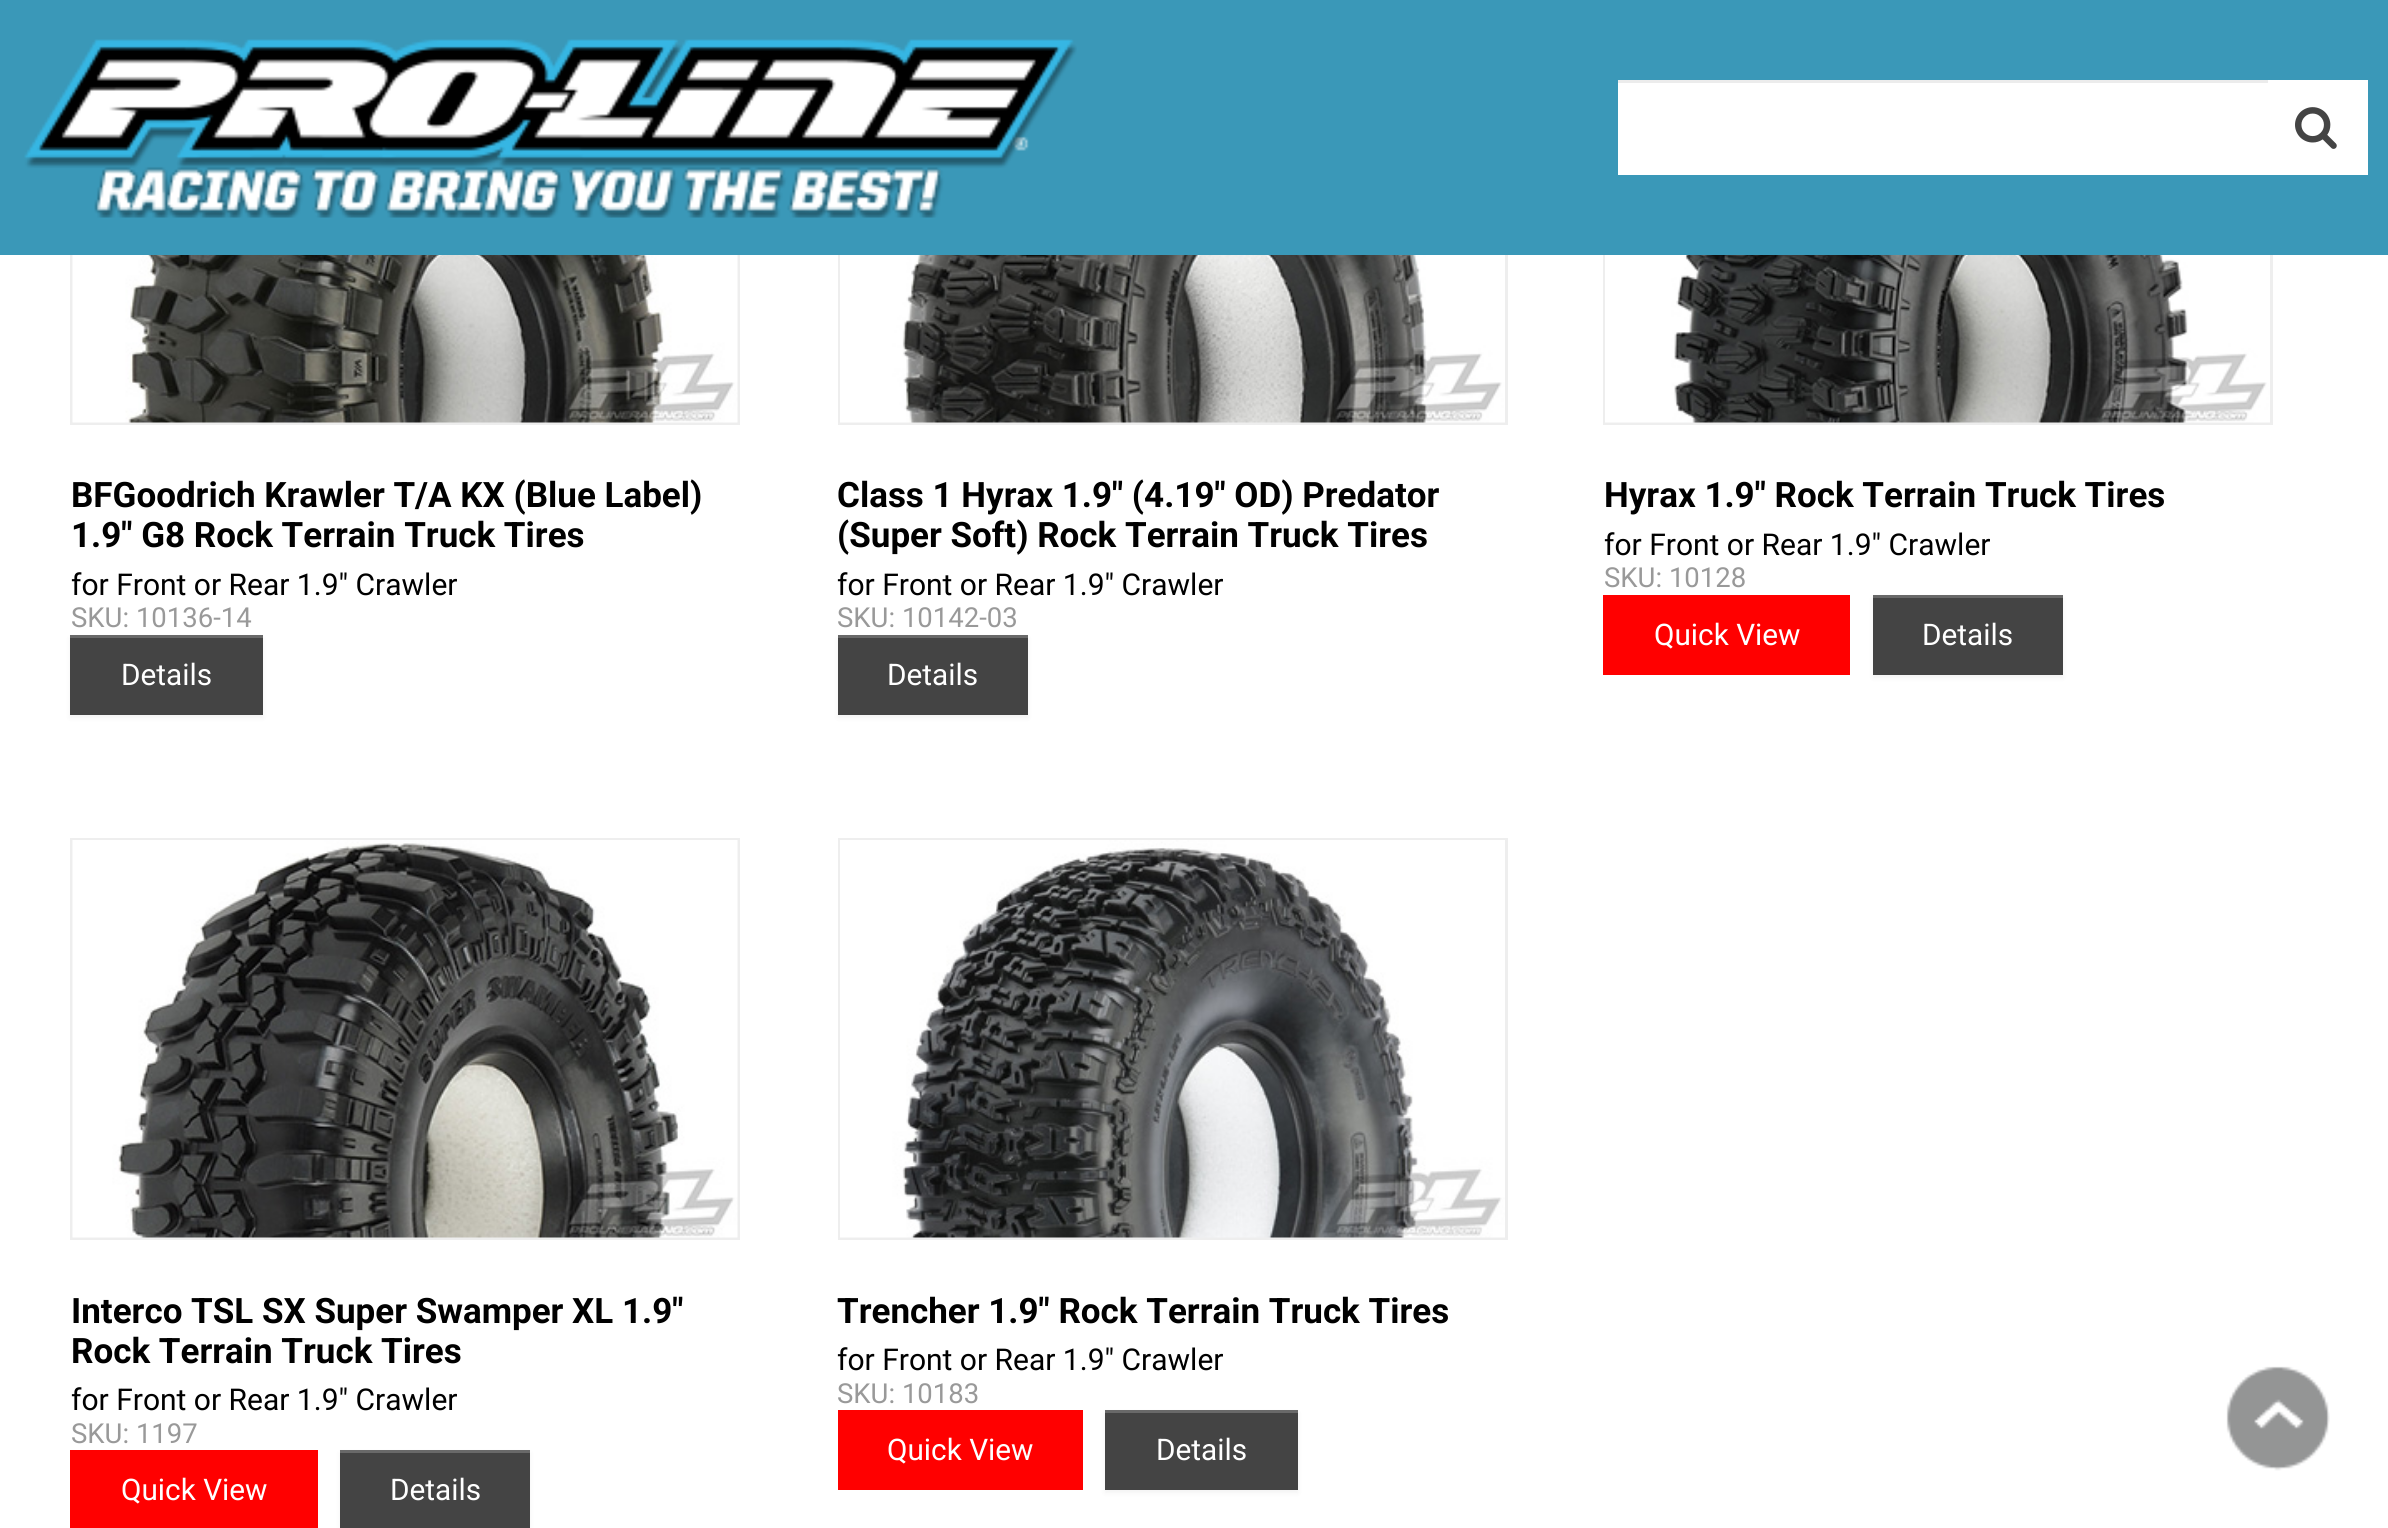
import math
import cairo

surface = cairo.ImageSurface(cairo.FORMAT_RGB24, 2388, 1528)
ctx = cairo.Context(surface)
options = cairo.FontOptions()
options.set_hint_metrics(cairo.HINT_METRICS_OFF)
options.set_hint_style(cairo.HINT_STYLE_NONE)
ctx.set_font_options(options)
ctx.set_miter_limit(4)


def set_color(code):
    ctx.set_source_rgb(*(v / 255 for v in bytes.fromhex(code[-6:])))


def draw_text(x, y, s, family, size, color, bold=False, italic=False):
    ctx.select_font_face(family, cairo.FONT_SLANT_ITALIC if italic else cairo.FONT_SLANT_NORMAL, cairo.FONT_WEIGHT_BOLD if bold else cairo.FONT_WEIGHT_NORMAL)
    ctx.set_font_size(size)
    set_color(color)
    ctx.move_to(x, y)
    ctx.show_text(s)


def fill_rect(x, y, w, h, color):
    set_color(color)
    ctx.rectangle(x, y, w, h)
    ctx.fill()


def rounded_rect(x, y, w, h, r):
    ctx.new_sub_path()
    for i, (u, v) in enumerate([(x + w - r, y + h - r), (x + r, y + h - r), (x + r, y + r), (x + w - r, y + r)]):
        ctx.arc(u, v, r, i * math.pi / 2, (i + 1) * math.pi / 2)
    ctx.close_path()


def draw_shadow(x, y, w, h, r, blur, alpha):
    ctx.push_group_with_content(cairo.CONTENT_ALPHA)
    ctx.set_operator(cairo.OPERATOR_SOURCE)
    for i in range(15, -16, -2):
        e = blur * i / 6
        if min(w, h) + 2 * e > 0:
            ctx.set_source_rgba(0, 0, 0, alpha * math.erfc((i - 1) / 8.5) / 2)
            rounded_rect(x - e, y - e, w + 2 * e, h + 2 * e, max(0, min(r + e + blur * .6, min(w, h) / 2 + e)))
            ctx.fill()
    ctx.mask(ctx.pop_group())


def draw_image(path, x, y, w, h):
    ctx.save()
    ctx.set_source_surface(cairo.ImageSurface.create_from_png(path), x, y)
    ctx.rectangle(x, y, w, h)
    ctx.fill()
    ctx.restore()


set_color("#ffffff")
ctx.paint()
ctx.rectangle(71.5, 21.5, 667, 402)
set_color("#eeeeee")
ctx.set_line_width(3)
ctx.stroke()
ctx.rectangle(839.5, 21.5, 667, 402)
ctx.stroke()
ctx.rectangle(1604.5, 21.5, 667, 402)
ctx.stroke()
fill_rect(0, 0, 2388, 255, "#3a98b8")
draw_image("assets/img1.png", 24, 39, 1053, 179)
fill_rect(1618, 80, 750, 95, "#ffffff")
fill_rect(1618, 80, 650, 3, "#ececec")
draw_image("assets/img2.png", 2295, 107, 42, 42)
draw_image("assets/img3.png", 72, 255, 666, 168)
draw_text(71, 507, "BFGoodrich Krawler T/A KX (Blue Label)", "Roboto", 35, "#000000", bold=True)
draw_text(71, 547, "1.9\" G8 Rock Terrain Truck Tires", "Roboto", 35, "#000000", bold=True)
draw_text(71, 595, "for Front or Rear 1.9\" Crawler", "Roboto", 30, "#000000")
draw_text(71, 627, "SKU: 10136-14", "Roboto", 27.5, "#999999")
set_color("#000000")
draw_shadow(70, 638, 193, 80, 0, 2.5, 0.05)
fill_rect(70, 638, 193, 77, "#444444")
fill_rect(70, 635, 193, 3, "#696969")
draw_text(121, 685, "Details", "Roboto", 29.75, "#ffffff")
draw_image("assets/img4.png", 840, 255, 665, 168)
draw_text(837, 507, "Class 1 Hyrax 1.9\" (4.19\" OD) Predator", "Roboto", 35, "#000000", bold=True)
draw_text(837, 547, "(Super Soft) Rock Terrain Truck Tires", "Roboto", 35, "#000000", bold=True)
draw_text(837, 595, "for Front or Rear 1.9\" Crawler", "Roboto", 30, "#000000")
draw_text(837, 627, "SKU: 10142-03", "Roboto", 27.5, "#999999")
set_color("#000000")
draw_shadow(838, 638, 190, 80, 0, 2.5, 0.05)
fill_rect(838, 638, 190, 77, "#444444")
fill_rect(838, 635, 190, 3, "#696969")
draw_text(887, 685, "Details", "Roboto", 29.75, "#ffffff")
draw_image("assets/img5.png", 1605, 255, 665, 168)
draw_text(1604, 507, "Hyrax 1.9\" Rock Terrain Truck Tires", "Roboto", 35, "#000000", bold=True)
draw_text(1604, 555, "for Front or Rear 1.9\" Crawler", "Roboto", 30, "#000000")
draw_text(1604, 587, "SKU: 10128", "Roboto", 27.5, "#999999")
fill_rect(1603, 595, 247, 80, "#ff0000")
draw_text(1654, 645, "Quick View", "Roboto", 29.75, "#ffffff")
set_color("#000000")
draw_shadow(1873, 598, 190, 80, 0, 2.5, 0.05)
fill_rect(1873, 598, 190, 77, "#444444")
fill_rect(1873, 595, 190, 3, "#696969")
draw_text(1922, 645, "Details", "Roboto", 29.75, "#ffffff")
ctx.rectangle(71.5, 839.5, 667, 399)
set_color("#eeeeee")
ctx.stroke()
draw_image("assets/img6.png", 72, 840, 666, 398)
draw_text(71, 1323, "Interco TSL SX Super Swamper XL 1.9\"", "Roboto", 35, "#000000", bold=True)
draw_text(71, 1363, "Rock Terrain Truck Tires", "Roboto", 35, "#000000", bold=True)
draw_text(71, 1410, "for Front or Rear 1.9\" Crawler", "Roboto", 30, "#000000")
draw_text(71, 1443, "SKU: 1197", "Roboto", 27.5, "#999999")
fill_rect(70, 1450, 248, 78, "#ff0000")
draw_text(121, 1500, "Quick View", "Roboto", 29.75, "#ffffff")
set_color("#000000")
draw_shadow(340, 1453, 190, 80, 0, 2.5, 0.05)
fill_rect(340, 1453, 190, 75, "#444444")
fill_rect(340, 1450, 190, 3, "#696969")
draw_text(390, 1500, "Details", "Roboto", 29.75, "#ffffff")
ctx.rectangle(839.5, 839.5, 667, 399)
set_color("#eeeeee")
ctx.stroke()
draw_image("assets/img7.png", 840, 840, 665, 398)
draw_text(837, 1323, "Trencher 1.9\" Rock Terrain Truck Tires", "Roboto", 35, "#000000", bold=True)
draw_text(837, 1370, "for Front or Rear 1.9\" Crawler", "Roboto", 30, "#000000")
draw_text(837, 1403, "SKU: 10183", "Roboto", 27.5, "#999999")
fill_rect(838, 1410, 245, 80, "#ff0000")
draw_text(887, 1460, "Quick View", "Roboto", 29.75, "#ffffff")
set_color("#000000")
draw_shadow(1105, 1413, 193, 80, 0, 2.5, 0.05)
fill_rect(1105, 1413, 193, 77, "#444444")
fill_rect(1105, 1410, 193, 3, "#696969")
draw_text(1156, 1460, "Details", "Roboto", 29.75, "#ffffff")
draw_image("assets/img8.png", 2226, 1366, 104, 105)
surface.write_to_png("output.png")
